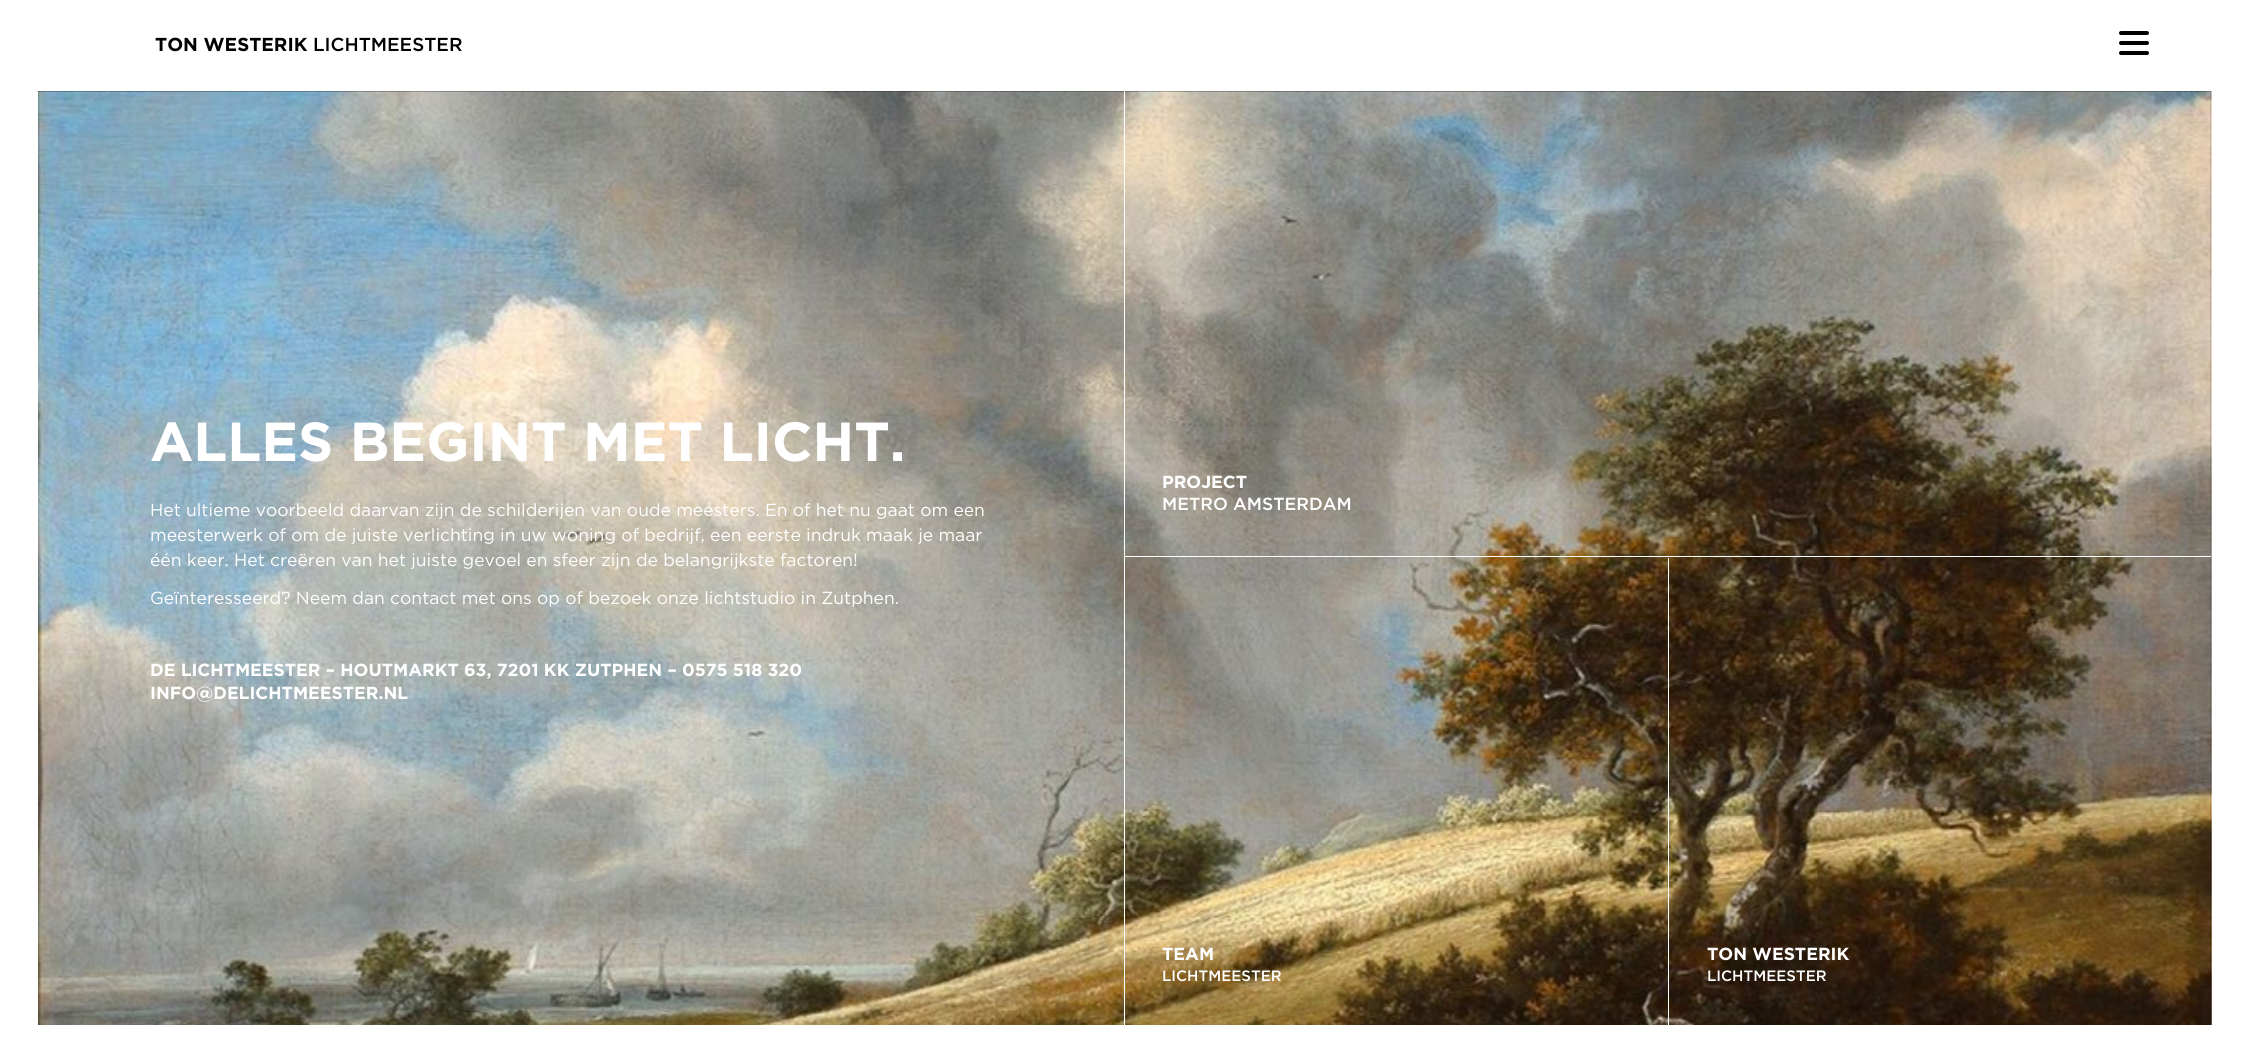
import math
import cairo

surface = cairo.ImageSurface(cairo.FORMAT_RGB24, 2248, 1061)
ctx = cairo.Context(surface)
options = cairo.FontOptions()
options.set_hint_metrics(cairo.HINT_METRICS_OFF)
options.set_hint_style(cairo.HINT_STYLE_NONE)
ctx.set_font_options(options)
ctx.set_miter_limit(4)


def set_color(code):
    ctx.set_source_rgb(*(v / 255 for v in bytes.fromhex(code[-6:])))


def draw_text(x, y, s, family, size, color, bold=False, italic=False):
    ctx.select_font_face(family, cairo.FONT_SLANT_ITALIC if italic else cairo.FONT_SLANT_NORMAL, cairo.FONT_WEIGHT_BOLD if bold else cairo.FONT_WEIGHT_NORMAL)
    ctx.set_font_size(size)
    set_color(color)
    ctx.move_to(x, y)
    ctx.show_text(s)


def fill_rect(x, y, w, h, color):
    set_color(color)
    ctx.rectangle(x, y, w, h)
    ctx.fill()


def rounded_rect(x, y, w, h, r):
    ctx.new_sub_path()
    for i, (u, v) in enumerate([(x + w - r, y + h - r), (x + r, y + h - r), (x + r, y + r), (x + w - r, y + r)]):
        ctx.arc(u, v, r, i * math.pi / 2, (i + 1) * math.pi / 2)
    ctx.close_path()


def draw_image(path, x, y, w, h):
    ctx.save()
    ctx.set_source_surface(cairo.ImageSurface.create_from_png(path), x, y)
    ctx.rectangle(x, y, w, h)
    ctx.fill()
    ctx.restore()


set_color("#ffffff")
ctx.paint()
draw_text(155, 51, "TON WESTERIK", "Gotham", 18.75, "#000000", bold=True)
draw_text(313, 51, "LICHTMEESTER", "Gotham Medium", 18.75, "#000000")
rounded_rect(2119, 31, 30, 4, 2)
ctx.fill()
rounded_rect(2119, 41, 30, 4, 2)
ctx.fill()
rounded_rect(2119, 51, 30, 4, 2)
ctx.fill()
fill_rect(38, 91, 2173, 934, "#000000")
draw_image("assets/img1.png", 38, 91, 2174, 934)
fill_rect(1124, 91, 1, 934, "#ffffff")
draw_text(150, 461, "ALLES BEGINT MET LICHT.", "Gotham", 54.9, "#ffffff", bold=True)
draw_text(150, 516, "Het ultieme voorbeeld daarvan zijn de schilderijen van oude meesters. En of het nu gaat om een", "Gotham", 17.5, "#ffffff")
draw_text(150, 541, "meesterwerk of om de juiste verlichting in uw woning of bedrijf, een eerste indruk maak je maar", "Gotham", 17.5, "#ffffff")
draw_text(150, 566, "één keer. Het creëren van het juiste gevoel en sfeer zijn de belangrijkste factoren!", "Gotham", 17.5, "#ffffff")
draw_text(150, 604, "Geïnteresseerd? Neem dan contact met ons op of bezoek onze lichtstudio in Zutphen.", "Gotham", 17.5, "#ffffff")
draw_text(150, 676, "DE LICHTMEESTER – HOUTMARKT 63, 7201 KK ZUTPHEN – 0575 518 320", "Gotham", 17.5, "#ffffff", bold=True)
draw_text(150, 699, "INFO@DELICHTMEESTER.NL", "Gotham", 17.5, "#ffffff", bold=True)
fill_rect(1125, 556, 1086, 1, "#ffffff")
draw_text(1162, 488, "PROJECT", "Gotham", 17.5, "#ffffff", bold=True)
draw_text(1162, 510, "METRO AMSTERDAM", "Gotham Medium", 17.5, "#ffffff")
draw_text(1162, 960, "TEAM", "Gotham", 17.5, "#ffffff", bold=True)
draw_text(1162, 981, "LICHTMEESTER", "Gotham Medium", 15, "#ffffff")
fill_rect(1668, 558, 1, 467, "#ffffff")
draw_text(1707, 960, "TON WESTERIK", "Gotham", 17.5, "#ffffff", bold=True)
draw_text(1707, 981, "LICHTMEESTER", "Gotham Medium", 15, "#ffffff")
surface.write_to_png("output.png")
